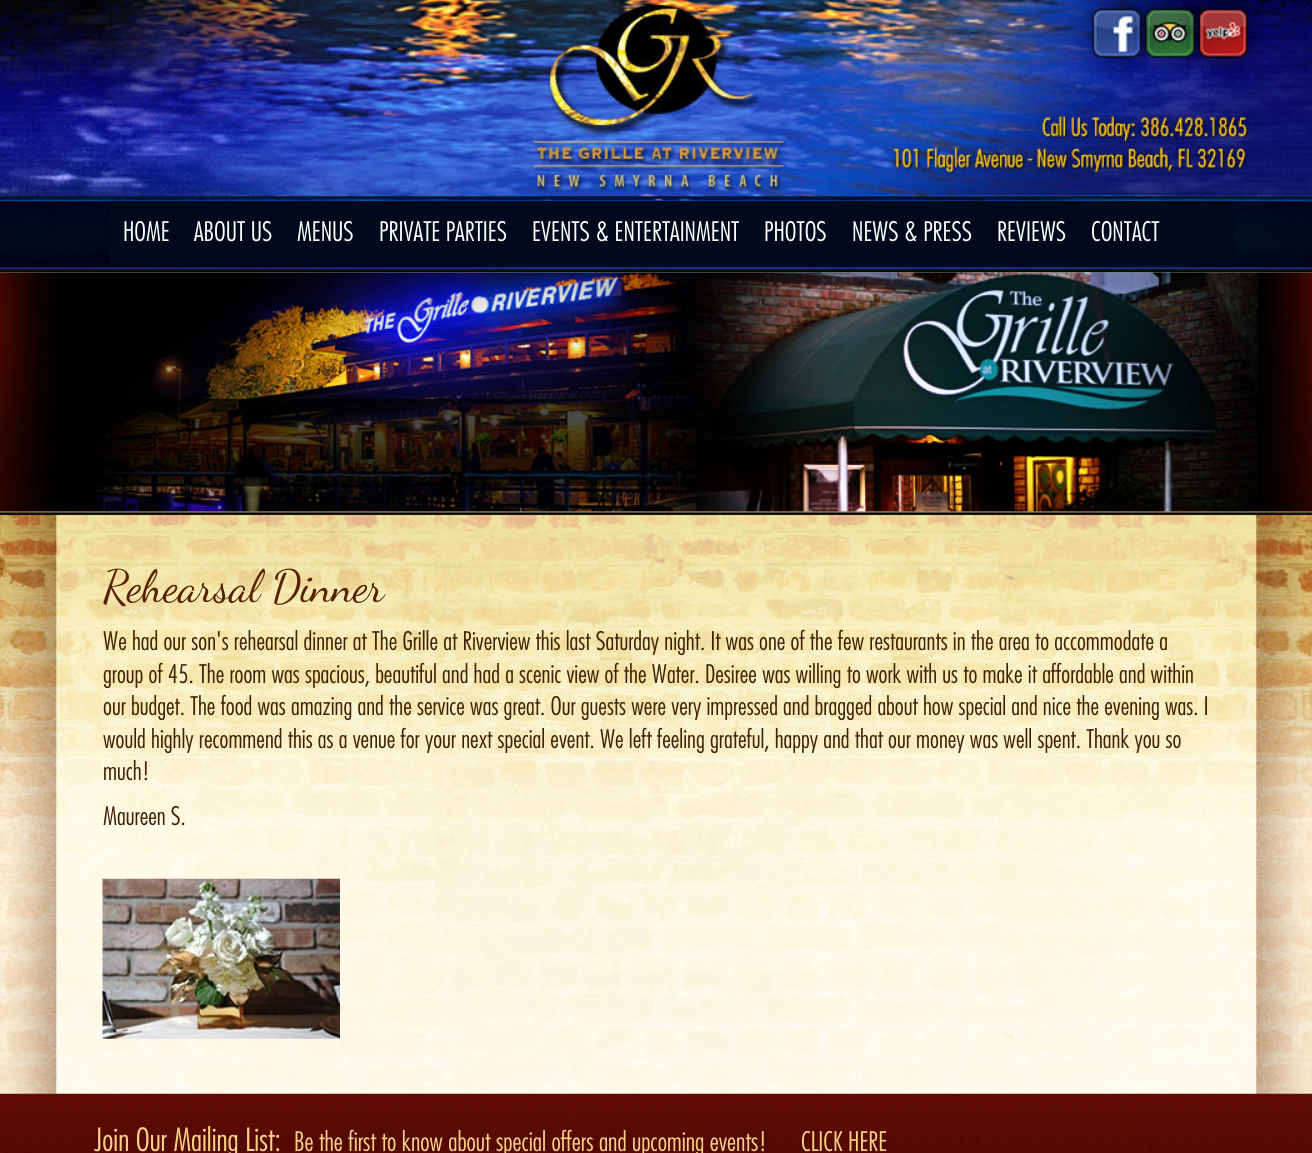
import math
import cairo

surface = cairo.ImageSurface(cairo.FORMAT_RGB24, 1312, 1153)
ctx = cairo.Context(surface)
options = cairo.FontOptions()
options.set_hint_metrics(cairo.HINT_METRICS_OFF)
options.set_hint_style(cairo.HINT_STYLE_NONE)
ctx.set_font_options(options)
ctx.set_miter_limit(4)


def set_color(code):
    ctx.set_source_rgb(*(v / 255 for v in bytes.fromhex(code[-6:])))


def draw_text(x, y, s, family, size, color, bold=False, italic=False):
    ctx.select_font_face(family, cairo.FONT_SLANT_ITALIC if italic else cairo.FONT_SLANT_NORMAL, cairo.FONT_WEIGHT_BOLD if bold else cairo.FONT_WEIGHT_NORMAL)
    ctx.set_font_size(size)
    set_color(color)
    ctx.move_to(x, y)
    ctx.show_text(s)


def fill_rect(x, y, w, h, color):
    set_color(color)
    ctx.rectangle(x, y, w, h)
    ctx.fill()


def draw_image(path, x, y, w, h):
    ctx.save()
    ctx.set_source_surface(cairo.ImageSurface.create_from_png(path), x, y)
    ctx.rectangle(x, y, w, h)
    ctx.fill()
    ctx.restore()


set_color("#ffffff")
ctx.paint()
draw_image("assets/img1.png", 0, 0, 1312, 273)
fill_rect(110, 201, 1125, 63, "#000a1c")
draw_text(123, 241, "HOME", "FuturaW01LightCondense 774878 Light", 26.25, "#ffffff")
draw_text(194, 241, "ABOUT US", "FuturaW01LightCondense 774878 Light", 26.25, "#ffffff")
draw_text(297, 241, "MENUS", "FuturaW01LightCondense 774878 Light", 26.25, "#ffffff")
draw_text(379, 241, "PRIVATE PARTIES", "FuturaW01LightCondense 774878 Light", 26.25, "#ffffff")
draw_text(532, 241, "EVENTS & ENTERTAINMENT", "FuturaW01LightCondense 774878 Light", 26.25, "#ffffff")
draw_text(764, 241, "PHOTOS", "FuturaW01LightCondense 774878 Light", 26.25, "#ffffff")
draw_text(852, 241, "NEWS & PRESS", "FuturaW01LightCondense 774878 Light", 26.25, "#ffffff")
draw_text(997, 241, "REVIEWS", "FuturaW01LightCondense 774878 Light", 26.25, "#ffffff")
draw_text(1091, 241, "CONTACT", "FuturaW01LightCondense 774878 Light", 26.25, "#ffffff")
draw_image("assets/img2.png", 0, 272, 1312, 243)
draw_image("assets/img3.png", 0, 1093, 1312, 1)
draw_image("assets/img4.png", 0, 515, 1312, 579)
draw_text(103, 601, "Rehearsal Dinner", "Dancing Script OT", 45, "#572100")
draw_text(103, 650, "We had our son's rehearsal dinner at The Grille at Riverview this last Saturday night. It was one of the few restaurants in the area to accommodate a", "FuturaW01LightCondense 774878 Light", 25, "#402100")
draw_text(103, 683, "group of 45. The room was spacious, beautiful and had a scenic view of the Water. Desiree was willing to work with us to make it affordable and within", "FuturaW01LightCondense 774878 Light", 25, "#402100")
draw_text(103, 715, "our budget. The food was amazing and the service was great. Our guests were very impressed and bragged about how special and nice the evening was. I", "FuturaW01LightCondense 774878 Light", 25, "#402100")
draw_text(103, 748, "would highly recommend this as a venue for your next special event. We left feeling grateful, happy and that our money was well spent. Thank you so", "FuturaW01LightCondense 774878 Light", 25, "#402100")
draw_text(103, 780, "much!", "FuturaW01LightCondense 774878 Light", 25, "#402100")
draw_text(103, 825, "Maureen S.", "FuturaW01LightCondense 774878 Light", 25, "#402100")
draw_image("assets/img5.png", 102, 878, 238, 161)
draw_image("assets/img6.png", 0, 1093, 1312, 60)
draw_text(94, 1151, "Join Our Mailing List:", "FuturaW01LightCondense 774878 Light", 31.25, "#fed387")
draw_text(294, 1151, "Be the first to know about special offers and upcoming events!", "FuturaW01LightCondense 774878 Light", 26.25, "#fed387")
draw_text(801, 1151, "CLICK HERE", "FuturaW01LightCondense 774878 Light", 26.25, "#fed387")
surface.write_to_png("output.png")
